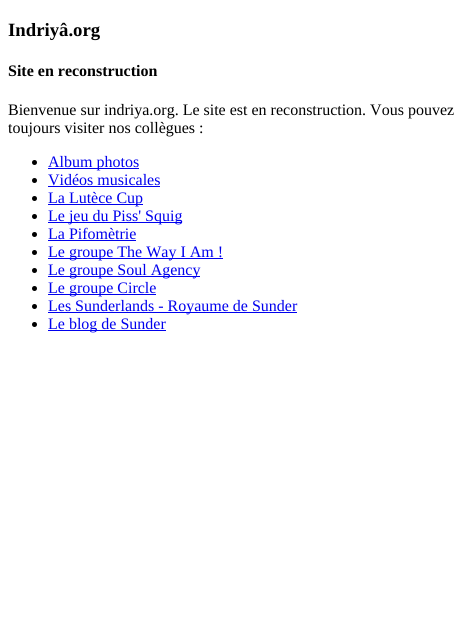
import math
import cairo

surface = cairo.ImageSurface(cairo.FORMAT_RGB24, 470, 638)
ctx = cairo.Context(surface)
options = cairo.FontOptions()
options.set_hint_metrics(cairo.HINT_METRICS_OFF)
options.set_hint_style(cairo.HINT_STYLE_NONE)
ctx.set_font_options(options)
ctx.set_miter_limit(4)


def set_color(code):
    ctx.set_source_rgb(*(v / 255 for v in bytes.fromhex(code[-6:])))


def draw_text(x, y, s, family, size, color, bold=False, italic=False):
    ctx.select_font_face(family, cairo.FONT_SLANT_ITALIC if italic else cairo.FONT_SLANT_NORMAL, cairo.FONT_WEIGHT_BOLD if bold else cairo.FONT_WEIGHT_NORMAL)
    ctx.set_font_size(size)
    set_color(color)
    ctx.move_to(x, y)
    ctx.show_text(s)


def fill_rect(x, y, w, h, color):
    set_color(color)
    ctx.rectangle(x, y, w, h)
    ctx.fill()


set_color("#ffffff")
ctx.paint()
draw_text(8, 36, "Indriyâ.org", "Liberation Serif", 18.75, "#000000", bold=True)
draw_text(8, 76, "Site en reconstruction", "Liberation Serif", 16, "#000000", bold=True)
draw_text(8, 115, "Bienvenue sur indriya.org. Le site est en reconstruction. Vous pouvez", "Liberation Serif", 16, "#000000")
draw_text(8, 133, "toujours visiter nos collègues :", "Liberation Serif", 16, "#000000")
ctx.new_path()
ctx.arc(34.5, 162.5, 2.5, 0, 2 * math.pi)
ctx.fill()
fill_rect(48, 168, 91, 1, "#0000ee")
draw_text(48, 167, "Album photos", "Liberation Serif", 16, "#0000ee")
set_color("#000000")
ctx.new_path()
ctx.arc(34.5, 180.5, 2.5, 0, 2 * math.pi)
ctx.fill()
draw_text(48, 185, "Vidéos musicales", "Liberation Serif", 16, "#0000ee")
fill_rect(48, 186, 112, 1, "#0000ee")
set_color("#000000")
ctx.new_path()
ctx.arc(34.5, 198.5, 2.5, 0, 2 * math.pi)
ctx.fill()
fill_rect(48, 204, 95, 1, "#0000ee")
draw_text(48, 203, "La Lutèce Cup", "Liberation Serif", 16, "#0000ee")
set_color("#000000")
ctx.new_path()
ctx.arc(34.5, 216.5, 2.5, 0, 2 * math.pi)
ctx.fill()
fill_rect(48, 222, 134, 1, "#0000ee")
draw_text(48, 221, "Le jeu du Piss' Squig", "Liberation Serif", 16, "#0000ee")
set_color("#000000")
ctx.new_path()
ctx.arc(34.5, 234.5, 2.5, 0, 2 * math.pi)
ctx.fill()
draw_text(48, 239, "La Pifomètrie", "Liberation Serif", 16, "#0000ee")
fill_rect(48, 240, 88, 1, "#0000ee")
set_color("#000000")
ctx.new_path()
ctx.arc(34.5, 252.5, 2.5, 0, 2 * math.pi)
ctx.fill()
fill_rect(48, 258, 175, 1, "#0000ee")
draw_text(48, 257, "Le groupe The Way I Am !", "Liberation Serif", 16, "#0000ee")
set_color("#000000")
ctx.new_path()
ctx.arc(34.5, 270.5, 2.5, 0, 2 * math.pi)
ctx.fill()
fill_rect(48, 276, 152, 1, "#0000ee")
draw_text(48, 275, "Le groupe Soul Agency", "Liberation Serif", 16, "#0000ee")
set_color("#000000")
ctx.new_path()
ctx.arc(34.5, 288.5, 2.5, 0, 2 * math.pi)
ctx.fill()
fill_rect(48, 294, 108, 1, "#0000ee")
draw_text(48, 293, "Le groupe Circle", "Liberation Serif", 16, "#0000ee")
set_color("#000000")
ctx.new_path()
ctx.arc(34.5, 306.5, 2.5, 0, 2 * math.pi)
ctx.fill()
fill_rect(48, 312, 249, 1, "#0000ee")
draw_text(48, 311, "Les Sunderlands - Royaume de Sunder", "Liberation Serif", 16, "#0000ee")
set_color("#000000")
ctx.new_path()
ctx.arc(34.5, 324.5, 2.5, 0, 2 * math.pi)
ctx.fill()
fill_rect(48, 330, 118, 1, "#0000ee")
draw_text(48, 329, "Le blog de Sunder", "Liberation Serif", 16, "#0000ee")
surface.write_to_png("output.png")
